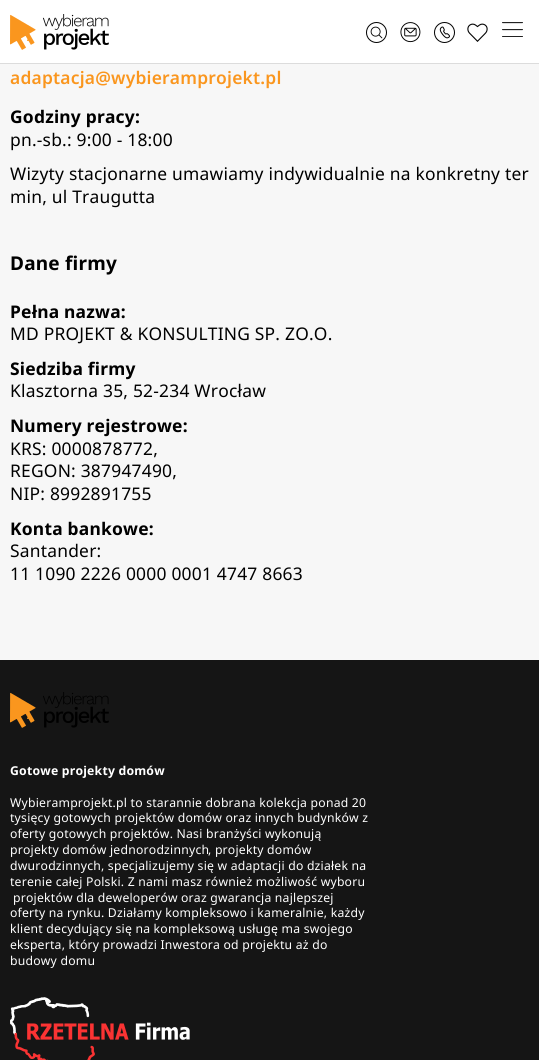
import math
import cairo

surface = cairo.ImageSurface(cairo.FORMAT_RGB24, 539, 1060)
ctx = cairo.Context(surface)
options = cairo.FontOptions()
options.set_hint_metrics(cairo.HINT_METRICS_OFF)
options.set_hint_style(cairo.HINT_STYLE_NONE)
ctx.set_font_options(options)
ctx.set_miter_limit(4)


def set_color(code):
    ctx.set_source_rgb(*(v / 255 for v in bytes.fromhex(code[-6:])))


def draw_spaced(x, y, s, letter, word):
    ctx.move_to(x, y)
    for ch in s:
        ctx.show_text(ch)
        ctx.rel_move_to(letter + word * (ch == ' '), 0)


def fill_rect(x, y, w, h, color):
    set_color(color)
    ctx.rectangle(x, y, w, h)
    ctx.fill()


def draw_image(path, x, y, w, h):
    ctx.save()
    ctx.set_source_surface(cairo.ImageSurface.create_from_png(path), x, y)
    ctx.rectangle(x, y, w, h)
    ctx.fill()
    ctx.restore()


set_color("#f7f7f7")
ctx.paint()
fill_rect(0, 0, 539, 63, "#ffffff")
fill_rect(0, 63, 539, 1, "#dcdcdc")
draw_image("assets/img1.png", 10, 14, 99, 36)
draw_image("assets/img2.png", 366, 22, 21, 21)
draw_image("assets/img3.png", 400, 22, 21, 21)
draw_image("assets/img4.png", 434, 22, 21, 21)
draw_image("assets/img5.png", 467, 23, 21, 19)
draw_image("assets/img6.png", 502, 22, 21, 15)
ctx.select_font_face("Noto Sans SemiBold")
ctx.set_font_size(17.4)
set_color("#fa961e")
draw_spaced(10, 84, "adaptacja@wybieramprojekt.pl", 0.22, 0)
ctx.select_font_face("Noto Sans", cairo.FONT_SLANT_NORMAL, cairo.FONT_WEIGHT_BOLD)
set_color("#000000")
draw_spaced(10, 123, "Godziny pracy:", 0.22, 0)
ctx.select_font_face("Noto Sans")
draw_spaced(10, 146, "pn.-sb.: 9:00 - 18:00", 0.22, 0)
draw_spaced(10, 180, "Wizyty stacjonarne umawiamy indywidualnie na konkretny ter", 0.22, 0)
draw_spaced(10, 203, "min, ul Traugutta", 0.22, 0)
ctx.select_font_face("Noto Sans", cairo.FONT_SLANT_NORMAL, cairo.FONT_WEIGHT_BOLD)
ctx.set_font_size(19)
draw_spaced(10, 270, "Dane firmy", 0.22, 0)
ctx.set_font_size(17.4)
draw_spaced(10, 318, "Pełna nazwa:", 0.22, 0)
ctx.select_font_face("Noto Sans")
draw_spaced(10, 340, "MD PROJEKT & KONSULTING SP. ZO.O.", 0.22, 0)
ctx.select_font_face("Noto Sans", cairo.FONT_SLANT_NORMAL, cairo.FONT_WEIGHT_BOLD)
draw_spaced(10, 375, "Siedziba firmy", 0.22, 0)
ctx.select_font_face("Noto Sans")
draw_spaced(10, 397, "Klasztorna 35, 52-234 Wrocław", 0.22, 0)
ctx.select_font_face("Noto Sans", cairo.FONT_SLANT_NORMAL, cairo.FONT_WEIGHT_BOLD)
draw_spaced(10, 432, "Numery rejestrowe:", 0.22, 0)
ctx.select_font_face("Noto Sans")
draw_spaced(10, 455, "KRS: 0000878772,", 0.22, 0)
draw_spaced(10, 477, "REGON: 387947490,", 0.22, 0)
draw_spaced(10, 500, "NIP: 8992891755", 0.22, 0)
ctx.select_font_face("Noto Sans", cairo.FONT_SLANT_NORMAL, cairo.FONT_WEIGHT_BOLD)
draw_spaced(10, 535, "Konta bankowe:", 0.22, 0)
ctx.select_font_face("Noto Sans")
draw_spaced(10, 557, "Santander:", 0.22, 0)
draw_spaced(10, 580, "11 1090 2226 0000 0001 4747 8663", 0.22, 0)
fill_rect(0, 660, 539, 400, "#151515")
draw_image("assets/img7.png", 10, 692, 99, 36)
ctx.select_font_face("Noto Sans", cairo.FONT_SLANT_NORMAL, cairo.FONT_WEIGHT_BOLD)
ctx.set_font_size(12.2)
set_color("#ffffff")
draw_spaced(10, 775, "Gotowe projekty domów", 0.22, 0)
ctx.select_font_face("Noto Sans")
draw_spaced(10, 807, "Wybieramprojekt.pl to starannie dobrana kolekcja ponad 20", 0.22, 0)
draw_spaced(10, 822, "tysięcy gotowych projektów domów oraz innych budynków z", 0.22, 0)
draw_spaced(10, 838, "oferty gotowych projektów. Nasi branżyści wykonują", 0.22, 0)
draw_spaced(10, 854, "projekty domów jednorodzinnych", 0.22, 0)
draw_spaced(208, 854, ", projekty domów", 0.22, 0)
draw_spaced(10, 870, "dwurodzinnych, specjalizujemy się w adaptacji do działek na", 0.22, 0)
draw_spaced(10, 886, "terenie całej Polski. Z nami masz również możliwość wyboru", 0.22, 0)
draw_spaced(13, 902, "projektów dla deweloperów", 0.22, 0)
draw_spaced(181, 902, "oraz gwarancja najlepszej", 0.22, 0)
draw_spaced(10, 917, "oferty na rynku. Działamy kompleksowo i kameralnie, każdy", 0.22, 0)
draw_spaced(10, 933, "klient decydujący się na kompleksową usługę ma swojego", 0.22, 0)
draw_spaced(10, 949, "eksperta, który prowadzi Inwestora od projektu aż do", 0.22, 0)
draw_spaced(10, 965, "budowy domu", 0.22, 0)
draw_image("assets/img8.png", 10, 997, 180, 63)
surface.write_to_png("output.png")
